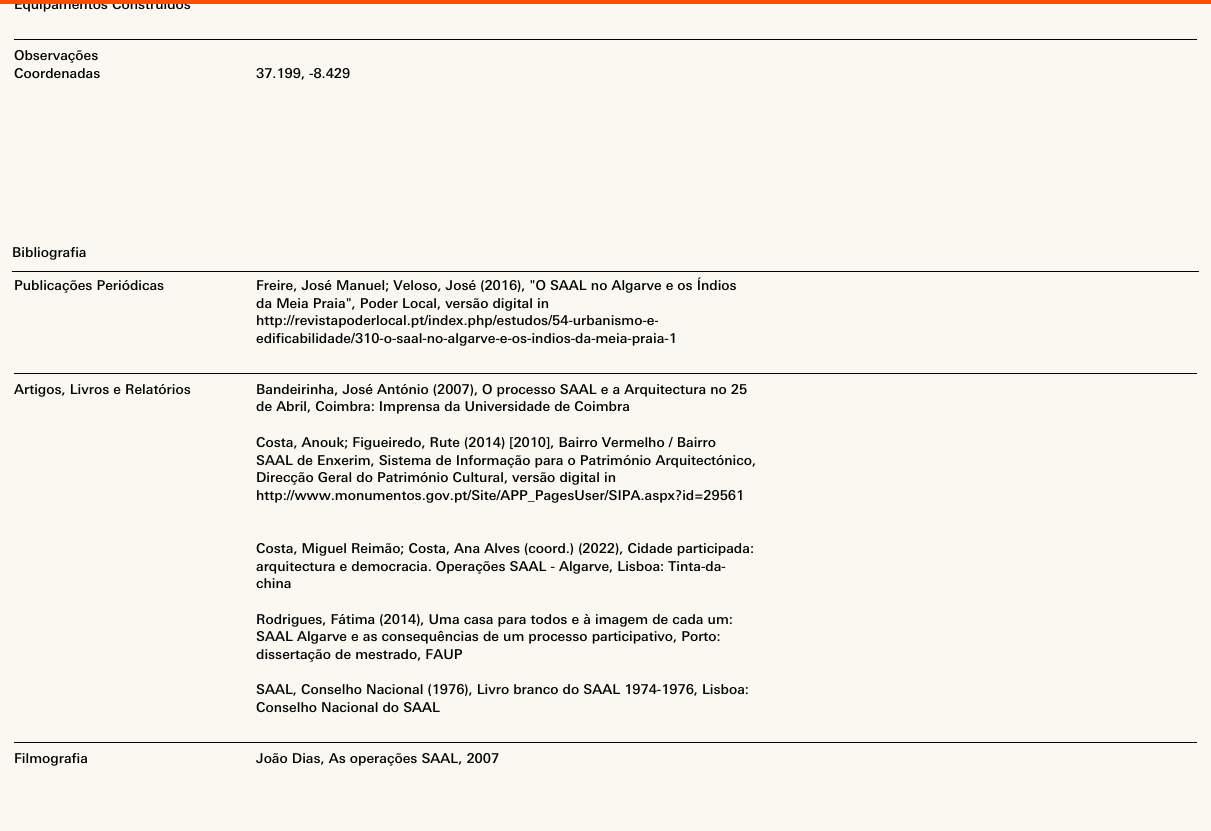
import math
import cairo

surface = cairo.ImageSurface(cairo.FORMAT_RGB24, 1211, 831)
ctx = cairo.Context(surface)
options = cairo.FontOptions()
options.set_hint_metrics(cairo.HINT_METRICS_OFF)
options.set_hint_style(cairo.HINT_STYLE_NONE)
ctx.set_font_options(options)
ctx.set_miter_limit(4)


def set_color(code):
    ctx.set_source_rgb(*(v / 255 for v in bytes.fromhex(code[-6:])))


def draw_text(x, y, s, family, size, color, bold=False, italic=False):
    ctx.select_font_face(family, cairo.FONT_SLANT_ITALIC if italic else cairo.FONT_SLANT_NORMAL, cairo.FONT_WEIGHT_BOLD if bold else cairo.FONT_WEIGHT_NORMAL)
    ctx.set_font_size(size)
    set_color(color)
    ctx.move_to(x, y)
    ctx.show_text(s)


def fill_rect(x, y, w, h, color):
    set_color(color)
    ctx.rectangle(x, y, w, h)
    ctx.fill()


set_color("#f9f8f1")
ctx.paint()
draw_text(14, 9, "Equipamentos Construídos", "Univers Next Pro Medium", 13.6, "#000000")
fill_rect(0, 0, 1211, 4, "#ff4d00")
fill_rect(14, 39, 1183, 1, "#000000")
draw_text(14, 60, "Observações", "Univers Next Pro Medium", 13.6, "#000000")
draw_text(14, 78, "Coordenadas", "Univers Next Pro Medium", 13.6, "#000000")
draw_text(256, 78, "37.199, -8.429", "Univers Next Pro Medium", 13.6, "#000000")
draw_text(12, 257, "Bibliografia", "Univers Next Pro Medium", 13.6, "#000000")
fill_rect(12, 271, 1187, 1, "#000000")
draw_text(14, 290, "Publicações Periódicas", "Univers Next Pro Medium", 13.6, "#000000")
draw_text(256, 290, "Freire, José Manuel; Veloso, José (2016), \"O SAAL no Algarve e os Índios", "Univers Next Pro Medium", 13.6, "#000000")
draw_text(256, 308, "da Meia Praia\", Poder Local, versão digital in", "Univers Next Pro Medium", 13.6, "#000000")
draw_text(256, 325, "http://revistapoderlocal.pt/index.php/estudos/54-urbanismo-e-", "Univers Next Pro Medium", 13.6, "#000000")
draw_text(256, 343, "edificabilidade/310-o-saal-no-algarve-e-os-indios-da-meia-praia-1", "Univers Next Pro Medium", 13.6, "#000000")
fill_rect(14, 373, 1183, 1, "#000000")
draw_text(14, 394, "Artigos, Livros e Relatórios", "Univers Next Pro Medium", 13.6, "#000000")
draw_text(256, 394, "Bandeirinha, José António (2007), O processo SAAL e a Arquitectura no 25", "Univers Next Pro Medium", 13.6, "#000000")
draw_text(256, 411, "de Abril, Coimbra: Imprensa da Universidade de Coimbra", "Univers Next Pro Medium", 13.6, "#000000")
draw_text(256, 447, "Costa, Anouk; Figueiredo, Rute (2014) [2010], Bairro Vermelho / Bairro", "Univers Next Pro Medium", 13.6, "#000000")
draw_text(256, 465, "SAAL de Enxerim, Sistema de Informação para o Património Arquitectónico,", "Univers Next Pro Medium", 13.6, "#000000")
draw_text(256, 482, "Direcção Geral do Património Cultural, versão digital in", "Univers Next Pro Medium", 13.6, "#000000")
draw_text(256, 500, "http://www.monumentos.gov.pt/Site/APP_PagesUser/SIPA.aspx?id=29561", "Univers Next Pro Medium", 13.6, "#000000")
draw_text(256, 553, "Costa, Miguel Reimão; Costa, Ana Alves (coord.) (2022), Cidade participada:", "Univers Next Pro Medium", 13.6, "#000000")
draw_text(256, 571, "arquitectura e democracia. Operações SAAL - Algarve, Lisboa: Tinta-da-", "Univers Next Pro Medium", 13.6, "#000000")
draw_text(256, 588, "china", "Univers Next Pro Medium", 13.6, "#000000")
draw_text(256, 624, "Rodrigues, Fátima (2014), Uma casa para todos e à imagem de cada um:", "Univers Next Pro Medium", 13.6, "#000000")
draw_text(256, 641, "SAAL Algarve e as consequências de um processo participativo, Porto:", "Univers Next Pro Medium", 13.6, "#000000")
draw_text(256, 659, "dissertação de mestrado, FAUP", "Univers Next Pro Medium", 13.6, "#000000")
draw_text(256, 694, "SAAL, Conselho Nacional (1976), Livro branco do SAAL 1974-1976, Lisboa:", "Univers Next Pro Medium", 13.6, "#000000")
draw_text(256, 712, "Conselho Nacional do SAAL", "Univers Next Pro Medium", 13.6, "#000000")
fill_rect(14, 742, 1183, 1, "#000000")
draw_text(14, 763, "Filmografia", "Univers Next Pro Medium", 13.6, "#000000")
draw_text(256, 763, "João Dias, As operações SAAL, 2007", "Univers Next Pro Medium", 13.6, "#000000")
surface.write_to_png("output.png")
